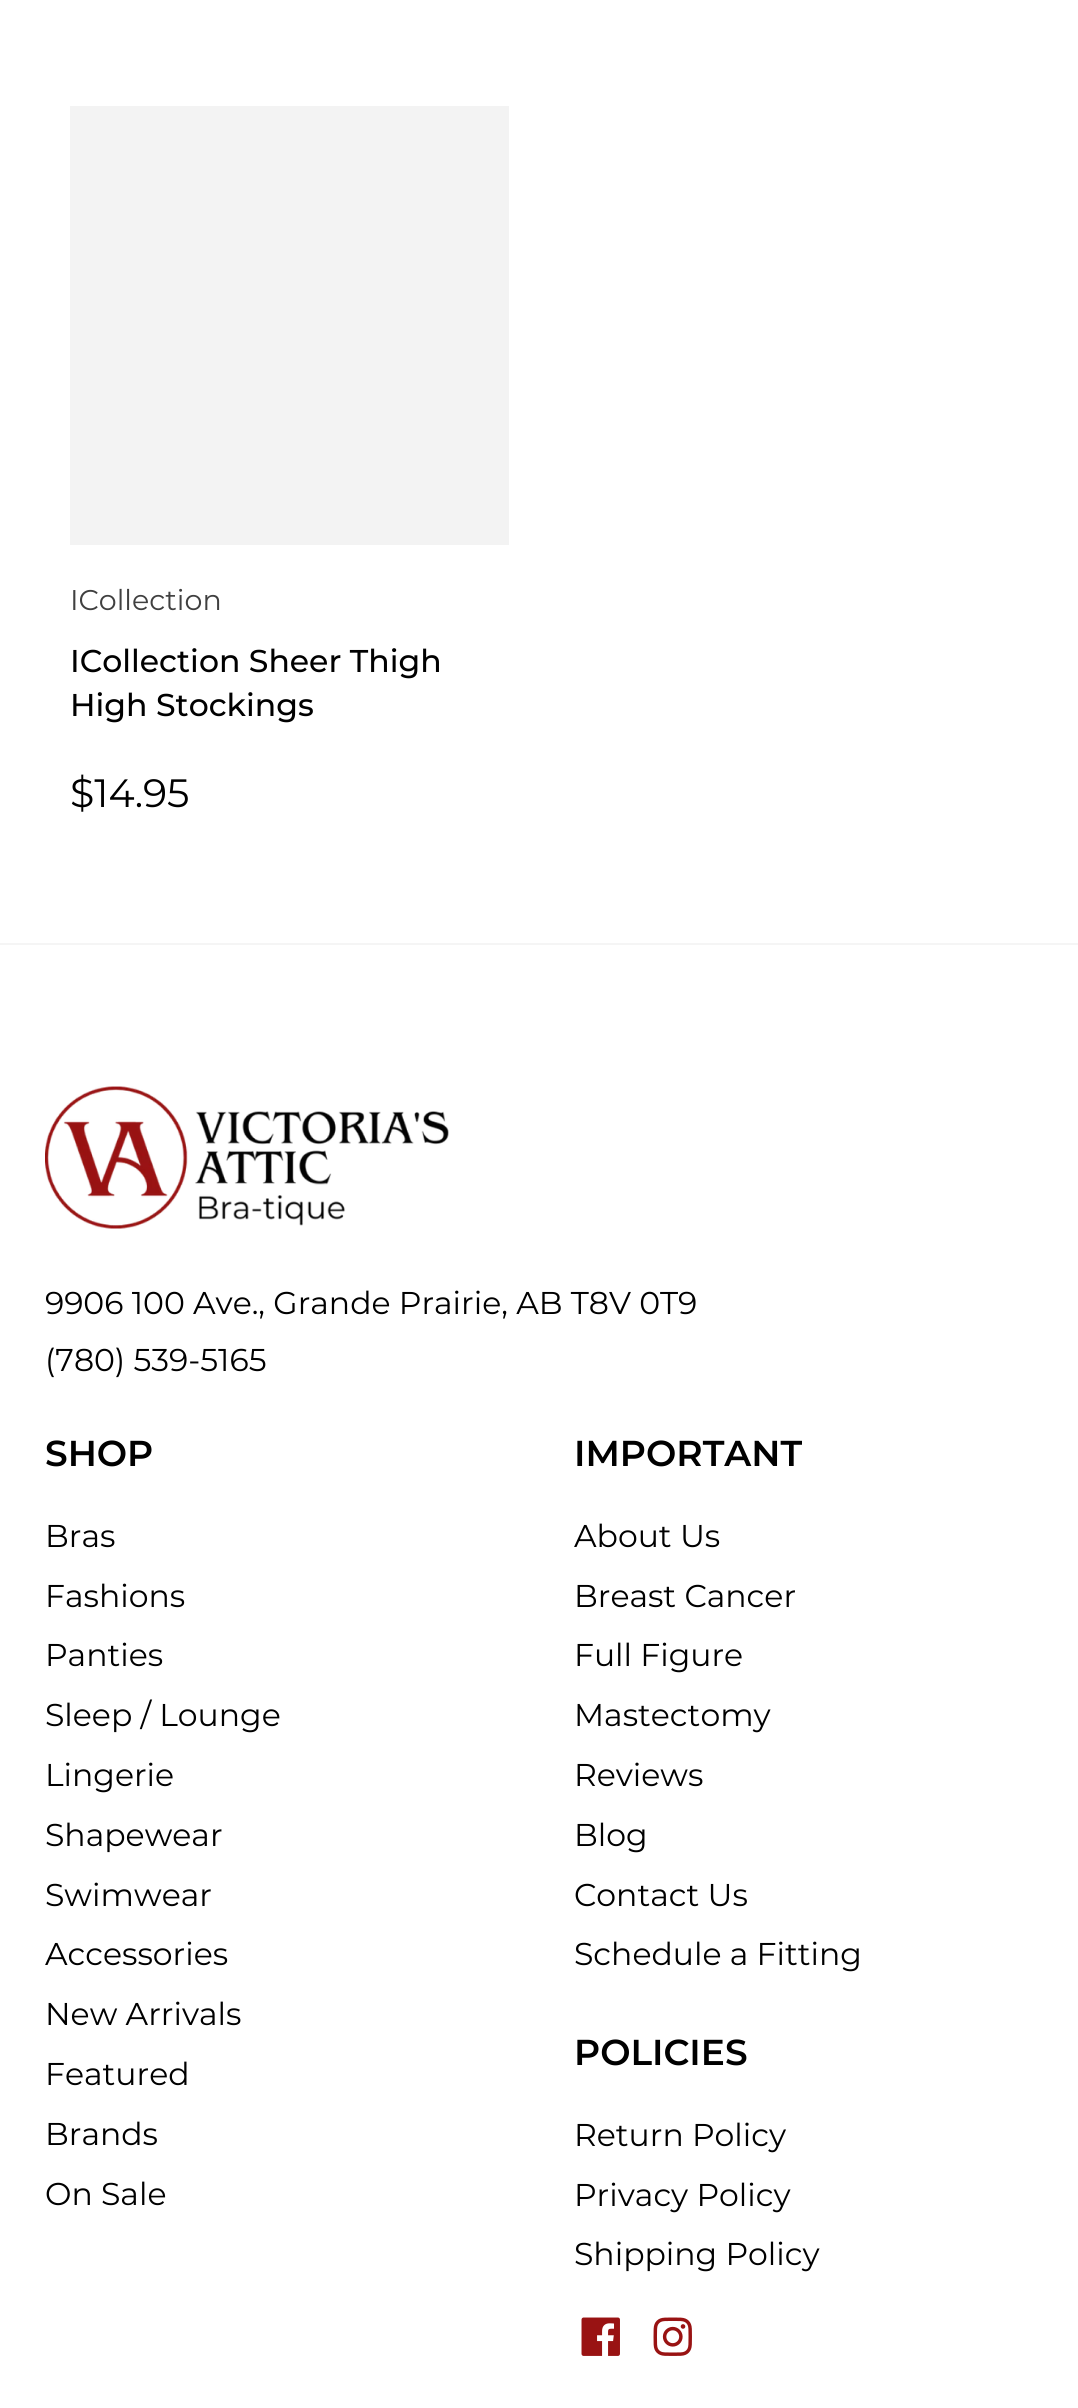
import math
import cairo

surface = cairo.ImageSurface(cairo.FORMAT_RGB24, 1078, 2408)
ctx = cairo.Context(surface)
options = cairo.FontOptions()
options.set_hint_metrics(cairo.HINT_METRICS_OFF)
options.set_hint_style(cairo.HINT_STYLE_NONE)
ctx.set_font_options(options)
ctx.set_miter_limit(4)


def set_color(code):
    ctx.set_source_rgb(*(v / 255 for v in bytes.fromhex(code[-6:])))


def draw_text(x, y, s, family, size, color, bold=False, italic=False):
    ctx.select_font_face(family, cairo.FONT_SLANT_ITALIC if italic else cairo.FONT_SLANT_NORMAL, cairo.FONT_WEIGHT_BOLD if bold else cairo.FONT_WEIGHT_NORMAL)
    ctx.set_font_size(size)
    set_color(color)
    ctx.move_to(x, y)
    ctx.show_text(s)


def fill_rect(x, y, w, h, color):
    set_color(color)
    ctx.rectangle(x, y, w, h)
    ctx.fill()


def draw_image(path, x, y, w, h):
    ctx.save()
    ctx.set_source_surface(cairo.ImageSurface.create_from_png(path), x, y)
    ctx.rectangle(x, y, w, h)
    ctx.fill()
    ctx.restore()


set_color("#ffffff")
ctx.paint()
fill_rect(70, 106, 439, 439, "#f3f3f3")
draw_text(70, 610, "ICollection", "Montserrat", 28.5, "#404040")
draw_text(70, 672, "ICollection Sheer Thigh", "Montserrat Medium", 31.5, "#000000")
draw_text(70, 716, "High Stockings", "Montserrat Medium", 31.5, "#000000")
draw_text(70, 807, "$14.95", "Montserrat", 39.5, "#000000")
fill_rect(0, 943, 1078, 2, "#f5f5f5")
draw_image("assets/img1.png", 45, 1086, 404, 143)
draw_text(45, 1314, "9906 100 Ave., Grande Prairie, AB T8V 0T9", "Montserrat", 31.5, "#000000")
draw_text(45, 1371, "(780) 539-5165", "Montserrat", 31.5, "#000000")
draw_text(45, 1466, "SHOP", "Montserrat SemiBold", 36, "#000000")
draw_text(45, 1547, "Bras", "Montserrat", 31.5, "#000000")
draw_text(45, 1607, "Fashions", "Montserrat", 31.5, "#000000")
draw_text(45, 1666, "Panties", "Montserrat", 31.5, "#000000")
draw_text(45, 1726, "Sleep / Lounge", "Montserrat", 31.5, "#000000")
draw_text(45, 1786, "Lingerie", "Montserrat", 31.5, "#000000")
draw_text(45, 1846, "Shapewear", "Montserrat", 31.5, "#000000")
draw_text(45, 1906, "Swimwear", "Montserrat", 31.5, "#000000")
draw_text(45, 1965, "Accessories", "Montserrat", 31.5, "#000000")
draw_text(45, 2025, "New Arrivals", "Montserrat", 31.5, "#000000")
draw_text(45, 2085, "Featured", "Montserrat", 31.5, "#000000")
draw_text(45, 2145, "Brands", "Montserrat", 31.5, "#000000")
draw_text(45, 2205, "On Sale", "Montserrat", 31.5, "#000000")
draw_text(574, 1466, "IMPORTANT", "Montserrat SemiBold", 36, "#000000")
draw_text(574, 1547, "About Us", "Montserrat", 31.5, "#000000")
draw_text(574, 1607, "Breast Cancer", "Montserrat", 31.5, "#000000")
draw_text(574, 1666, "Full Figure", "Montserrat", 31.5, "#000000")
draw_text(574, 1726, "Mastectomy", "Montserrat", 31.5, "#000000")
draw_text(574, 1786, "Reviews", "Montserrat", 31.5, "#000000")
draw_text(574, 1846, "Blog", "Montserrat", 31.5, "#000000")
draw_text(574, 1906, "Contact Us", "Montserrat", 31.5, "#000000")
draw_text(574, 1965, "Schedule a Fitting", "Montserrat", 31.5, "#000000")
draw_text(574, 2065, "POLICIES", "Montserrat SemiBold", 36, "#000000")
draw_text(574, 2146, "Return Policy", "Montserrat", 31.5, "#000000")
draw_text(574, 2206, "Privacy Policy", "Montserrat", 31.5, "#000000")
draw_text(574, 2265, "Shipping Policy", "Montserrat", 31.5, "#000000")
draw_image("assets/img2.png", 581, 2317, 39, 39)
draw_image("assets/img3.png", 653, 2317, 39, 39)
surface.write_to_png("output.png")
